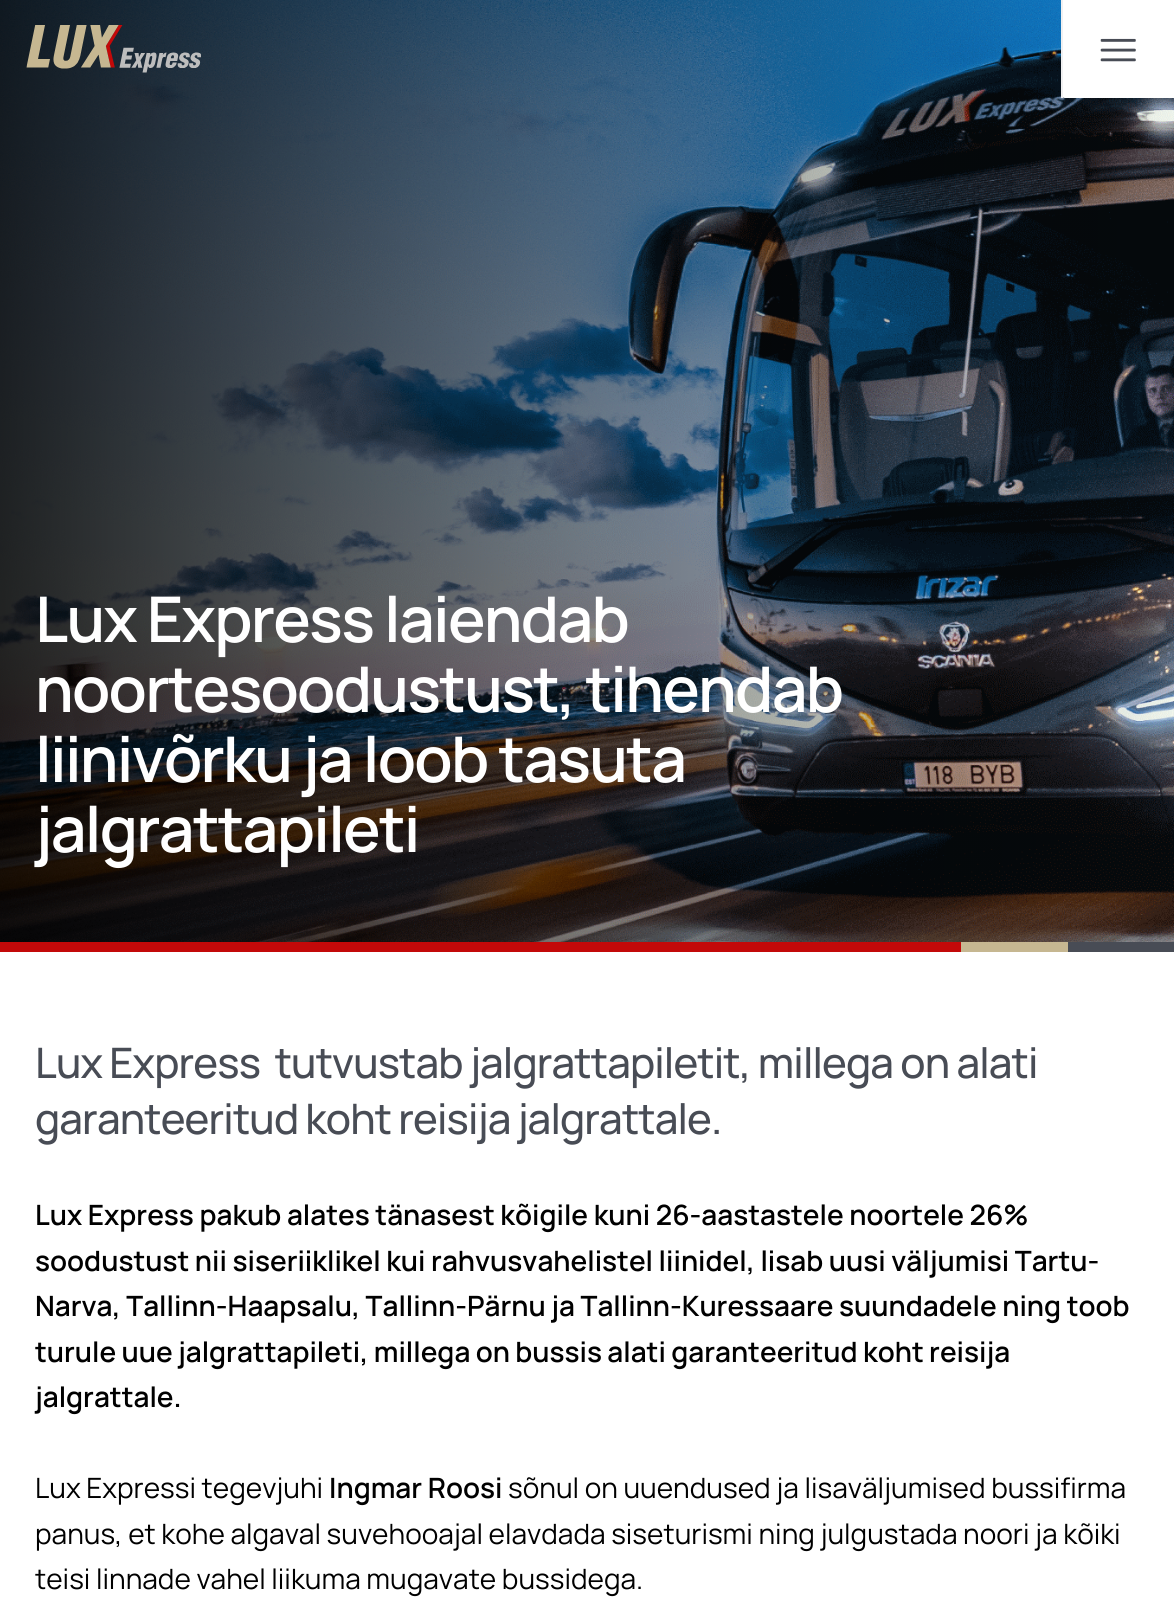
import math
import cairo

surface = cairo.ImageSurface(cairo.FORMAT_RGB24, 1174, 1613)
ctx = cairo.Context(surface)
options = cairo.FontOptions()
options.set_hint_metrics(cairo.HINT_METRICS_OFF)
options.set_hint_style(cairo.HINT_STYLE_NONE)
ctx.set_font_options(options)
ctx.set_miter_limit(4)


def set_color(code):
    ctx.set_source_rgb(*(v / 255 for v in bytes.fromhex(code[-6:])))


def draw_text(x, y, s, family, size, color, bold=False, italic=False):
    ctx.select_font_face(family, cairo.FONT_SLANT_ITALIC if italic else cairo.FONT_SLANT_NORMAL, cairo.FONT_WEIGHT_BOLD if bold else cairo.FONT_WEIGHT_NORMAL)
    ctx.set_font_size(size)
    set_color(color)
    ctx.move_to(x, y)
    ctx.show_text(s)


def draw_spaced(x, y, s, letter, word):
    ctx.move_to(x, y)
    for ch in s:
        ctx.show_text(ch)
        ctx.rel_move_to(letter + word * (ch == ' '), 0)


def fill_rect(x, y, w, h, color):
    set_color(color)
    ctx.rectangle(x, y, w, h)
    ctx.fill()


def draw_image(path, x, y, w, h):
    ctx.save()
    ctx.set_source_surface(cairo.ImageSurface.create_from_png(path), x, y)
    ctx.rectangle(x, y, w, h)
    ctx.fill()
    ctx.restore()


set_color("#ffffff")
ctx.paint()
draw_image("assets/img3.png", 0, 0, 1174, 942)
draw_image("assets/img1.png", 26, 25, 175, 48)
set_color("#ffffff")
ctx.new_path()
ctx.move_to(1061, 0)
ctx.line_to(1174, 0)
ctx.line_to(1174, 98)
ctx.line_to(1065, 98)
ctx.curve_to(1063, 98, 1061, 96, 1061, 94)
ctx.close_path()
ctx.fill()
fill_rect(1061, 0, 2, 98, "#f0f0f1")
draw_image("assets/img2.png", 1100, 38, 36, 24)
ctx.select_font_face("Manrope SemiBold")
ctx.set_font_size(63)
set_color("#ffffff")
draw_spaced(35, 642, "Lux Express laiendab", -1.75, 0)
draw_spaced(35, 712, "noortesoodustust, tihendab", -1.75, 0)
draw_spaced(35, 782, "liinivõrku ja loob tasuta", -1.75, 0)
draw_spaced(35, 852, "jalgrattapileti", -1.75, 0)
fill_rect(0, 942, 961, 10, "#c30909")
fill_rect(961, 942, 107, 10, "#c6b791")
fill_rect(1068, 942, 106, 10, "#484c55")
ctx.select_font_face("Manrope Medium")
ctx.set_font_size(42)
draw_spaced(35, 1078, "Lux Express  tutvustab jalgrattapiletit, millega on alati", -0.88, -0.25)
draw_spaced(35, 1134, "garanteeritud koht reisija jalgrattale.", -0.88, -0.5)
draw_text(35, 1225, "Lux Express pakub alates tänasest kõigile kuni 26-aastastele noortele 26%", "Manrope SemiBold", 28, "#000000")
draw_text(35, 1271, "soodustust nii siseriiklikel kui rahvusvahelistel liinidel, lisab uusi väljumisi Tartu-", "Manrope SemiBold", 28, "#000000")
draw_text(35, 1316, "Narva, Tallinn-Haapsalu, Tallinn-Pärnu ja Tallinn-Kuressaare suundadele ning toob", "Manrope SemiBold", 28, "#000000")
draw_spaced(35, 1362, "turule uue jalgrattapileti, millega on bussis alati garanteeritud koht reisija", 0, -0.25)
draw_text(35, 1407, "jalgrattale.", "Manrope SemiBold", 28, "#000000")
draw_text(35, 1498, "Lux Expressi tegevjuhi", "Manrope", 28, "#000000")
draw_text(329, 1498, "Ingmar Roosi", "Manrope SemiBold", 28, "#000000")
draw_text(508, 1498, "sõnul on uuendused ja lisaväljumised bussifirma", "Manrope", 28, "#000000")
draw_text(35, 1544, "panus, et kohe algaval suvehooajal elavdada siseturismi ning julgustada noori ja kõiki", "Manrope", 28, "#000000")
draw_text(35, 1589, "teisi linnade vahel liikuma mugavate bussidega.", "Manrope", 28, "#000000")
surface.write_to_png("output.png")
